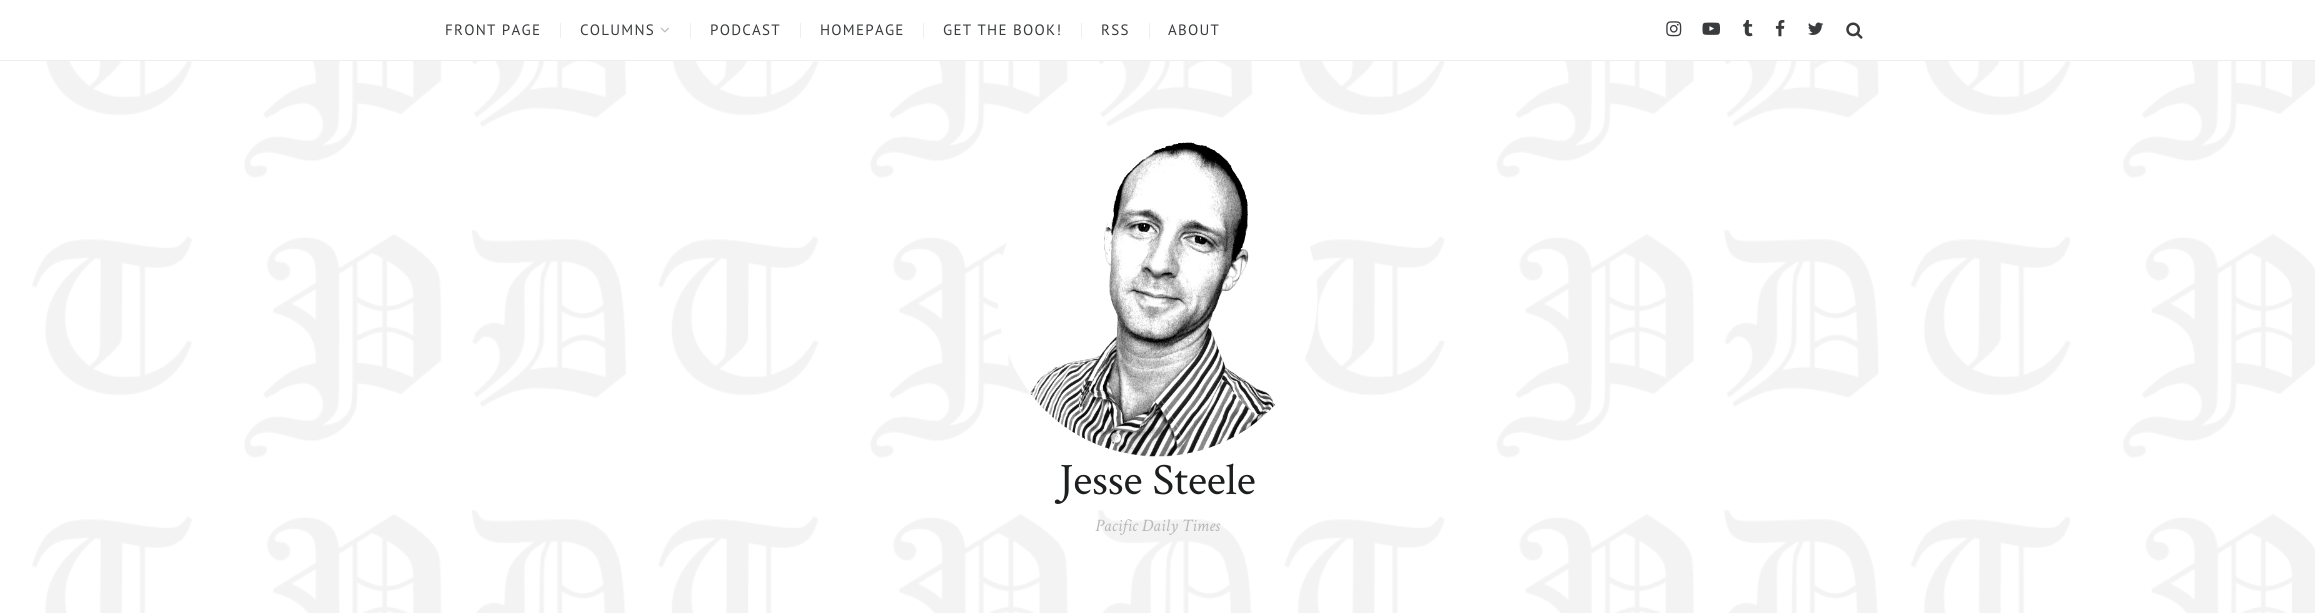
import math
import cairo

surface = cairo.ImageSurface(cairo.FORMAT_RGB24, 2315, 613)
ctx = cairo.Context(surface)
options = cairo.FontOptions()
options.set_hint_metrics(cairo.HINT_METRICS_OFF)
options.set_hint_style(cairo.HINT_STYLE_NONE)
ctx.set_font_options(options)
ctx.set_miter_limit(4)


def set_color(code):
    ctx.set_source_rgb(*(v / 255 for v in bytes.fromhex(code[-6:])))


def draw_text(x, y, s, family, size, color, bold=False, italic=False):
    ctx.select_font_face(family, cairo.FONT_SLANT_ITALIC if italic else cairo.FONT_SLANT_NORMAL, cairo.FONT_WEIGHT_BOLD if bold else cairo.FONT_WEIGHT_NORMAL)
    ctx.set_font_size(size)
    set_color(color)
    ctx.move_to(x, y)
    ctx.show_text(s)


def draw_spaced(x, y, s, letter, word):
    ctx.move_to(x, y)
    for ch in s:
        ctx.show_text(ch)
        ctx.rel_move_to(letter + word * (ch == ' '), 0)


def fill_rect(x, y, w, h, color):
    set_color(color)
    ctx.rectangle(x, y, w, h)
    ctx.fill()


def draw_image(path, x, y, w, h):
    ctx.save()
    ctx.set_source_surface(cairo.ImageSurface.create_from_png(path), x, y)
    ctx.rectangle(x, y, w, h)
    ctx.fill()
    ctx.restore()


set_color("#ffffff")
ctx.paint()
ctx.select_font_face("PT Sans")
ctx.set_font_size(15)
set_color("#3a3b3d")
draw_spaced(445, 35, "FRONT PAGE", 1.25, 0)
fill_rect(560, 23, 1, 15, "#eeeeee")
set_color("#3a3b3d")
draw_spaced(580, 35, "COLUMNS", 1.25, 0)
draw_image("assets/img1.png", 660, 27, 9, 6)
fill_rect(690, 23, 1, 15, "#eeeeee")
set_color("#3a3b3d")
draw_spaced(710, 35, "PODCAST", 1.25, 0)
fill_rect(800, 23, 1, 15, "#eeeeee")
set_color("#3a3b3d")
draw_spaced(820, 35, "HOMEPAGE", 1.25, 0)
fill_rect(923, 23, 1, 15, "#eeeeee")
set_color("#3a3b3d")
draw_spaced(943, 35, "GET THE BOOK!", 1.25, 0)
fill_rect(1081, 23, 1, 15, "#eeeeee")
set_color("#3a3b3d")
draw_spaced(1101, 35, "RSS", 1.25, 0)
fill_rect(1149, 23, 1, 15, "#eeeeee")
set_color("#3a3b3d")
draw_spaced(1168, 35, "ABOUT", 1.25, 0)
draw_image("assets/img2.png", 1666, 21, 16, 16)
draw_image("assets/img3.png", 1702, 22, 18, 13)
draw_image("assets/img4.png", 1743, 20, 10, 17)
draw_image("assets/img5.png", 1775, 20, 10, 17)
draw_image("assets/img6.png", 1808, 22, 16, 13)
draw_image("assets/img7.png", 1846, 22, 17, 17)
draw_image("assets/img8.png", 32, 61, 2283, 552)
fill_rect(0, 60, 2315, 1, "#eeeeee")
draw_image("assets/img9.png", 998, 142, 320, 315)
draw_text(1059, 494, "Jesse Steele", "Crimson Text", 45, "#1d1e1f")
draw_text(1095, 531, "Pacific Daily Times", "Crimson Text", 17.5, "#b6b6b6", italic=True)
surface.write_to_png("output.png")
